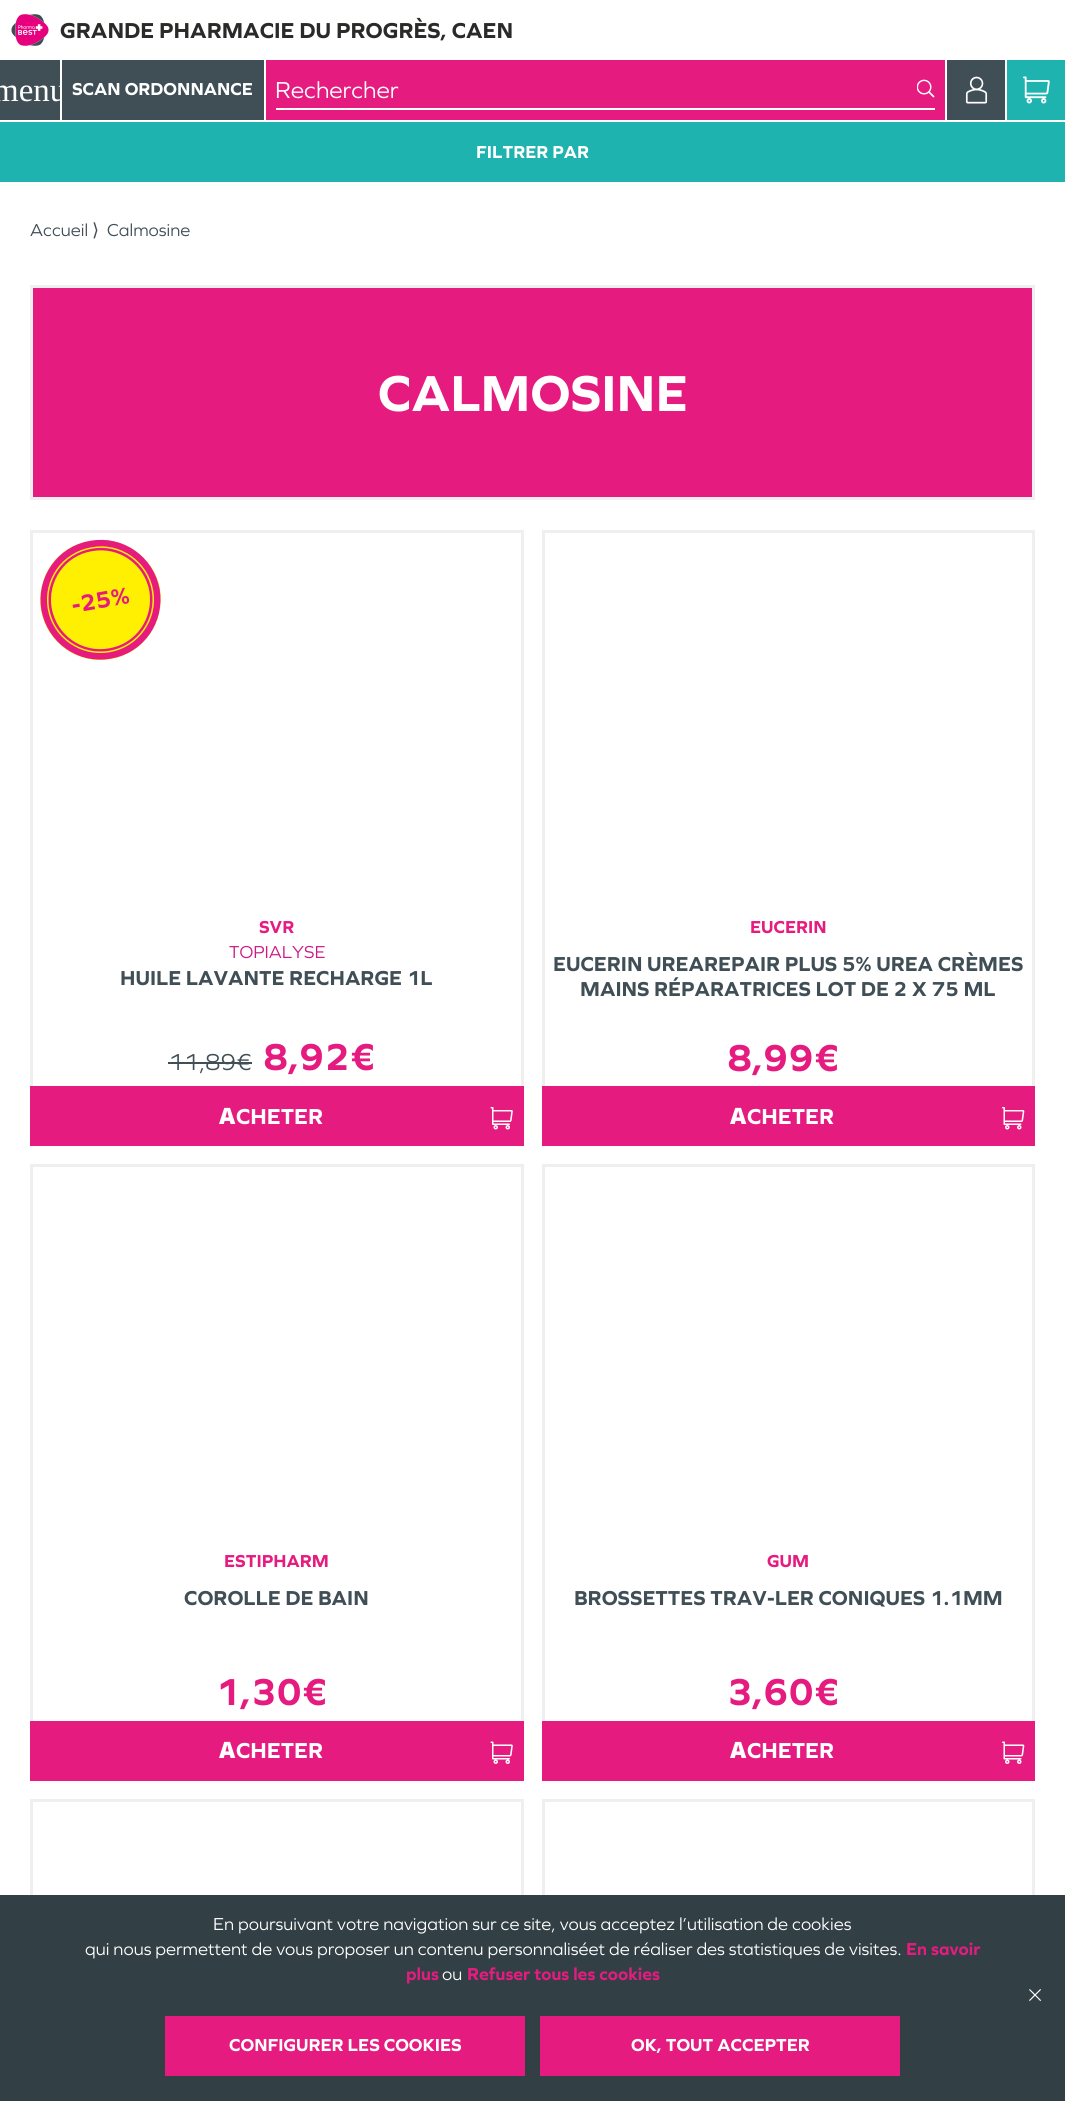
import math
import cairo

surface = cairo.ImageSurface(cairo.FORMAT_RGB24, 1065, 2101)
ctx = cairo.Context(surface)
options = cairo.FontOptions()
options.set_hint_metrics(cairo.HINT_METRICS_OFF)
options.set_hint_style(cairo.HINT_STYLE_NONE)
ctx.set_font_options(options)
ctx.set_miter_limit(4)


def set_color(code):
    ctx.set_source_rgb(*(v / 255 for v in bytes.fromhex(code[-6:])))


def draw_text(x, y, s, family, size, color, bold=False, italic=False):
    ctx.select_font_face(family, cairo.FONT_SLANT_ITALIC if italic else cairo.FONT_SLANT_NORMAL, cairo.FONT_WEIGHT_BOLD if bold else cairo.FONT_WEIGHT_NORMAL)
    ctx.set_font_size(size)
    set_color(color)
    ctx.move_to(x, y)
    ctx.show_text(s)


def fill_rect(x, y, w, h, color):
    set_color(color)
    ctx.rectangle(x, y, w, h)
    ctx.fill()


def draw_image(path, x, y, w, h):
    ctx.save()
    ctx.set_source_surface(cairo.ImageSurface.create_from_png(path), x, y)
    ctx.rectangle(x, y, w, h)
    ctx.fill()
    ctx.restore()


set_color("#ffffff")
ctx.paint()
draw_image("assets/img1.png", 11, 14, 38, 32)
draw_text(60, 38, "GRANDE PHARMACIE DU PROGRÈS, CAEN", "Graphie", 22.5, "#2a2b29", bold=True)
fill_rect(0, 60, 60, 60, "#404e55")
draw_text(-7, 101, "menu", "Liberation Serif", 33, "#ffffff")
fill_rect(62, 60, 202, 60, "#404e55")
draw_text(72, 95, "SCAN ORDONNANCE", "Graphie", 18, "#ffffff", bold=True)
fill_rect(266, 60, 679, 60, "#e61b80")
fill_rect(276, 108, 659, 2, "#ffffff")
draw_image("assets/img2.png", 917, 79, 18, 19)
draw_text(275, 98, "Rechercher", "Graphie", 24, "#ffffff")
fill_rect(947, 60, 58, 60, "#404e55")
draw_image("assets/img3.png", 965, 76, 23, 28)
fill_rect(1007, 60, 58, 60, "#1fb3b0")
draw_image("assets/img4.png", 1023, 76, 27, 28)
fill_rect(0, 122, 1065, 60, "#1fb3b0")
draw_text(476, 158, "FILTRER PAR", "Graphie", 18, "#ffffff", bold=True)
ctx.rectangle(31.5, 286.5, 1002, 212)
set_color("#efefef")
ctx.set_line_width(3)
ctx.stroke()
fill_rect(33, 288, 999, 209, "#e61b80")
draw_text(378, 411, "CALMOSINE", "Graphie", 52.5, "#ffffff", bold=True)
fill_rect(30, 530, 494, 3, "#efefef")
fill_rect(521, 530, 3, 556, "#efefef")
fill_rect(30, 530, 3, 556, "#efefef")
set_color("#ffef00")
ctx.new_path()
ctx.move_to(90, 541)
ctx.curve_to(123, 535, 154, 557, 160, 589)
ctx.curve_to(165, 622, 144, 653, 111, 659)
ctx.curve_to(78, 665, 47, 643, 41, 610)
ctx.curve_to(36, 577, 57, 546, 90, 541)
ctx.close_path()
ctx.fill()
ctx.new_path()
ctx.move_to(91, 546)
ctx.curve_to(121, 540.5, 149, 560.5, 154.5, 590)
ctx.curve_to(159.5, 620, 140, 648.5, 110, 653.5)
ctx.curve_to(80, 659, 52, 639, 46.5, 609)
ctx.curve_to(41.5, 579.5, 61, 551, 91, 546)
ctx.close_path()
set_color("#e61b80")
ctx.set_line_width(10.5)
ctx.stroke()
ctx.save()
ctx.translate(73, 613)
ctx.rotate(-10 * math.pi / 180)
draw_text(0, 0, "-25%", "Graphie", 24, "#e61b80", bold=True)
ctx.restore()
ctx.new_path()
ctx.move_to(91.5, 548)
ctx.curve_to(120, 542.5, 147.5, 562, 152.5, 590.5)
ctx.curve_to(157.5, 619, 138.5, 646.5, 109.5, 651.5)
ctx.curve_to(81, 656.5, 53.5, 637.5, 48.5, 609)
ctx.curve_to(43.5, 580, 62.5, 553, 91.5, 548)
ctx.close_path()
set_color("#ffef00")
ctx.set_line_width(1.5)
ctx.stroke()
draw_text(259, 933, "SVR", "Graphie", 18, "#e61b80", bold=True)
draw_text(229, 958, "TOPIALYSE", "Graphie", 18, "#cc1984")
draw_text(120, 985, "HUILE LAVANTE RECHARGE 1L", "Graphie", 21, "#404e55", bold=True)
draw_text(168, 1070, "11,89€", "Graphie", 24, "#404e55")
fill_rect(168, 1062, 84, 2, "#404e55")
draw_text(263, 1070, "8,92€", "Graphie", 39, "#e61b80", bold=True)
fill_rect(30, 1086, 494, 60, "#e61b80")
draw_text(219, 1124, "A", "Noto Sans Black", 22.5, "#ffffff")
draw_text(236, 1124, "CHETER", "Graphie", 22.5, "#ffffff", bold=True)
draw_image("assets/img5.png", 490, 1107, 23, 23)
fill_rect(542, 530, 493, 3, "#efefef")
fill_rect(1032, 530, 3, 556, "#efefef")
fill_rect(542, 530, 3, 556, "#efefef")
draw_text(750, 933, "EUCERIN", "Graphie", 18, "#e61b80", bold=True)
draw_text(553, 971, "EUCERIN UREAREPAIR PLUS 5% UREA CRÈMES", "Graphie", 21, "#404e55", bold=True)
draw_text(580, 996, "MAINS RÉPARATRICES LOT DE 2 X 75 ML", "Graphie", 21, "#404e55", bold=True)
draw_text(727, 1071, "8,99€", "Graphie", 39, "#e61b80", bold=True)
fill_rect(542, 1086, 493, 60, "#e61b80")
draw_text(730, 1124, "A", "Noto Sans Black", 22.5, "#ffffff")
draw_text(747, 1124, "CHETER", "Graphie", 22.5, "#ffffff", bold=True)
draw_image("assets/img6.png", 1002, 1107, 23, 23)
fill_rect(30, 1164, 494, 3, "#efefef")
fill_rect(521, 1164, 3, 557, "#efefef")
fill_rect(30, 1164, 3, 557, "#efefef")
draw_text(224, 1567, "ESTIPHARM", "Graphie", 18, "#e61b80", bold=True)
draw_text(184, 1605, "COROLLE DE BAIN", "Graphie", 21, "#404e55", bold=True)
draw_text(215, 1705, "1,30€", "Graphie", 39, "#e61b80", bold=True)
fill_rect(30, 1721, 494, 60, "#e61b80")
draw_text(219, 1758, "A", "Noto Sans Black", 22.5, "#ffffff")
draw_text(236, 1758, "CHETER", "Graphie", 22.5, "#ffffff", bold=True)
draw_image("assets/img7.png", 490, 1741, 23, 23)
fill_rect(542, 1164, 493, 3, "#efefef")
fill_rect(1032, 1164, 3, 557, "#efefef")
fill_rect(542, 1164, 3, 557, "#efefef")
draw_text(767, 1567, "GUM", "Graphie", 18, "#e61b80", bold=True)
draw_text(574, 1605, "BROSSETTES TRAV-LER CONIQUES 1.1MM", "Graphie", 21, "#404e55", bold=True)
draw_text(727, 1705, "3,60€", "Graphie", 39, "#e61b80", bold=True)
fill_rect(542, 1721, 493, 60, "#e61b80")
draw_text(730, 1758, "A", "Noto Sans Black", 22.5, "#ffffff")
draw_text(747, 1758, "CHETER", "Graphie", 22.5, "#ffffff", bold=True)
draw_image("assets/img8.png", 1002, 1741, 23, 23)
fill_rect(30, 1799, 494, 3, "#efefef")
fill_rect(521, 1799, 3, 96, "#efefef")
fill_rect(30, 1799, 3, 96, "#efefef")
fill_rect(542, 1799, 493, 3, "#efefef")
fill_rect(1032, 1799, 3, 96, "#efefef")
fill_rect(542, 1799, 3, 96, "#efefef")
draw_text(30, 236, "Accueil", "Graphie", 18, "#404e55")
draw_text(92, 236, "⟩", "DejaVu Sans", 18, "#404e55")
draw_text(107, 236, "Calmosine", "Graphie", 18, "#404e55")
fill_rect(0, 1895, 1065, 206, "#324045")
draw_text(213, 1930, "En poursuivant votre navigation sur ce site, vous acceptez l’utilisation de cookies", "Graphie", 18, "#ffffff")
draw_text(85, 1955, "qui nous permettent de vous proposer un contenu personnaliséet de réaliser des statistiques de visites.", "Graphie", 18, "#ffffff")
draw_text(906, 1955, "En savoir", "Graphie", 18, "#e61b80", bold=True)
draw_text(406, 1980, "plus", "Graphie", 18, "#e61b80", bold=True)
draw_text(442, 1980, "ou", "Graphie", 18, "#ffffff")
draw_text(467, 1980, "Refuser tous les cookies", "Graphie", 18, "#e61b80", bold=True)
fill_rect(165, 2016, 360, 60, "#e61b80")
draw_text(229, 2051, "CONFIGURER LES COOKIES", "Graphie", 18, "#ffffff", bold=True)
fill_rect(540, 2016, 360, 60, "#e61b80")
draw_text(631, 2051, "OK, TOUT ACCEPTER", "Graphie", 18, "#ffffff", bold=True)
draw_image("assets/img9.png", 1029, 1989, 12, 12)
surface.write_to_png("output.png")
